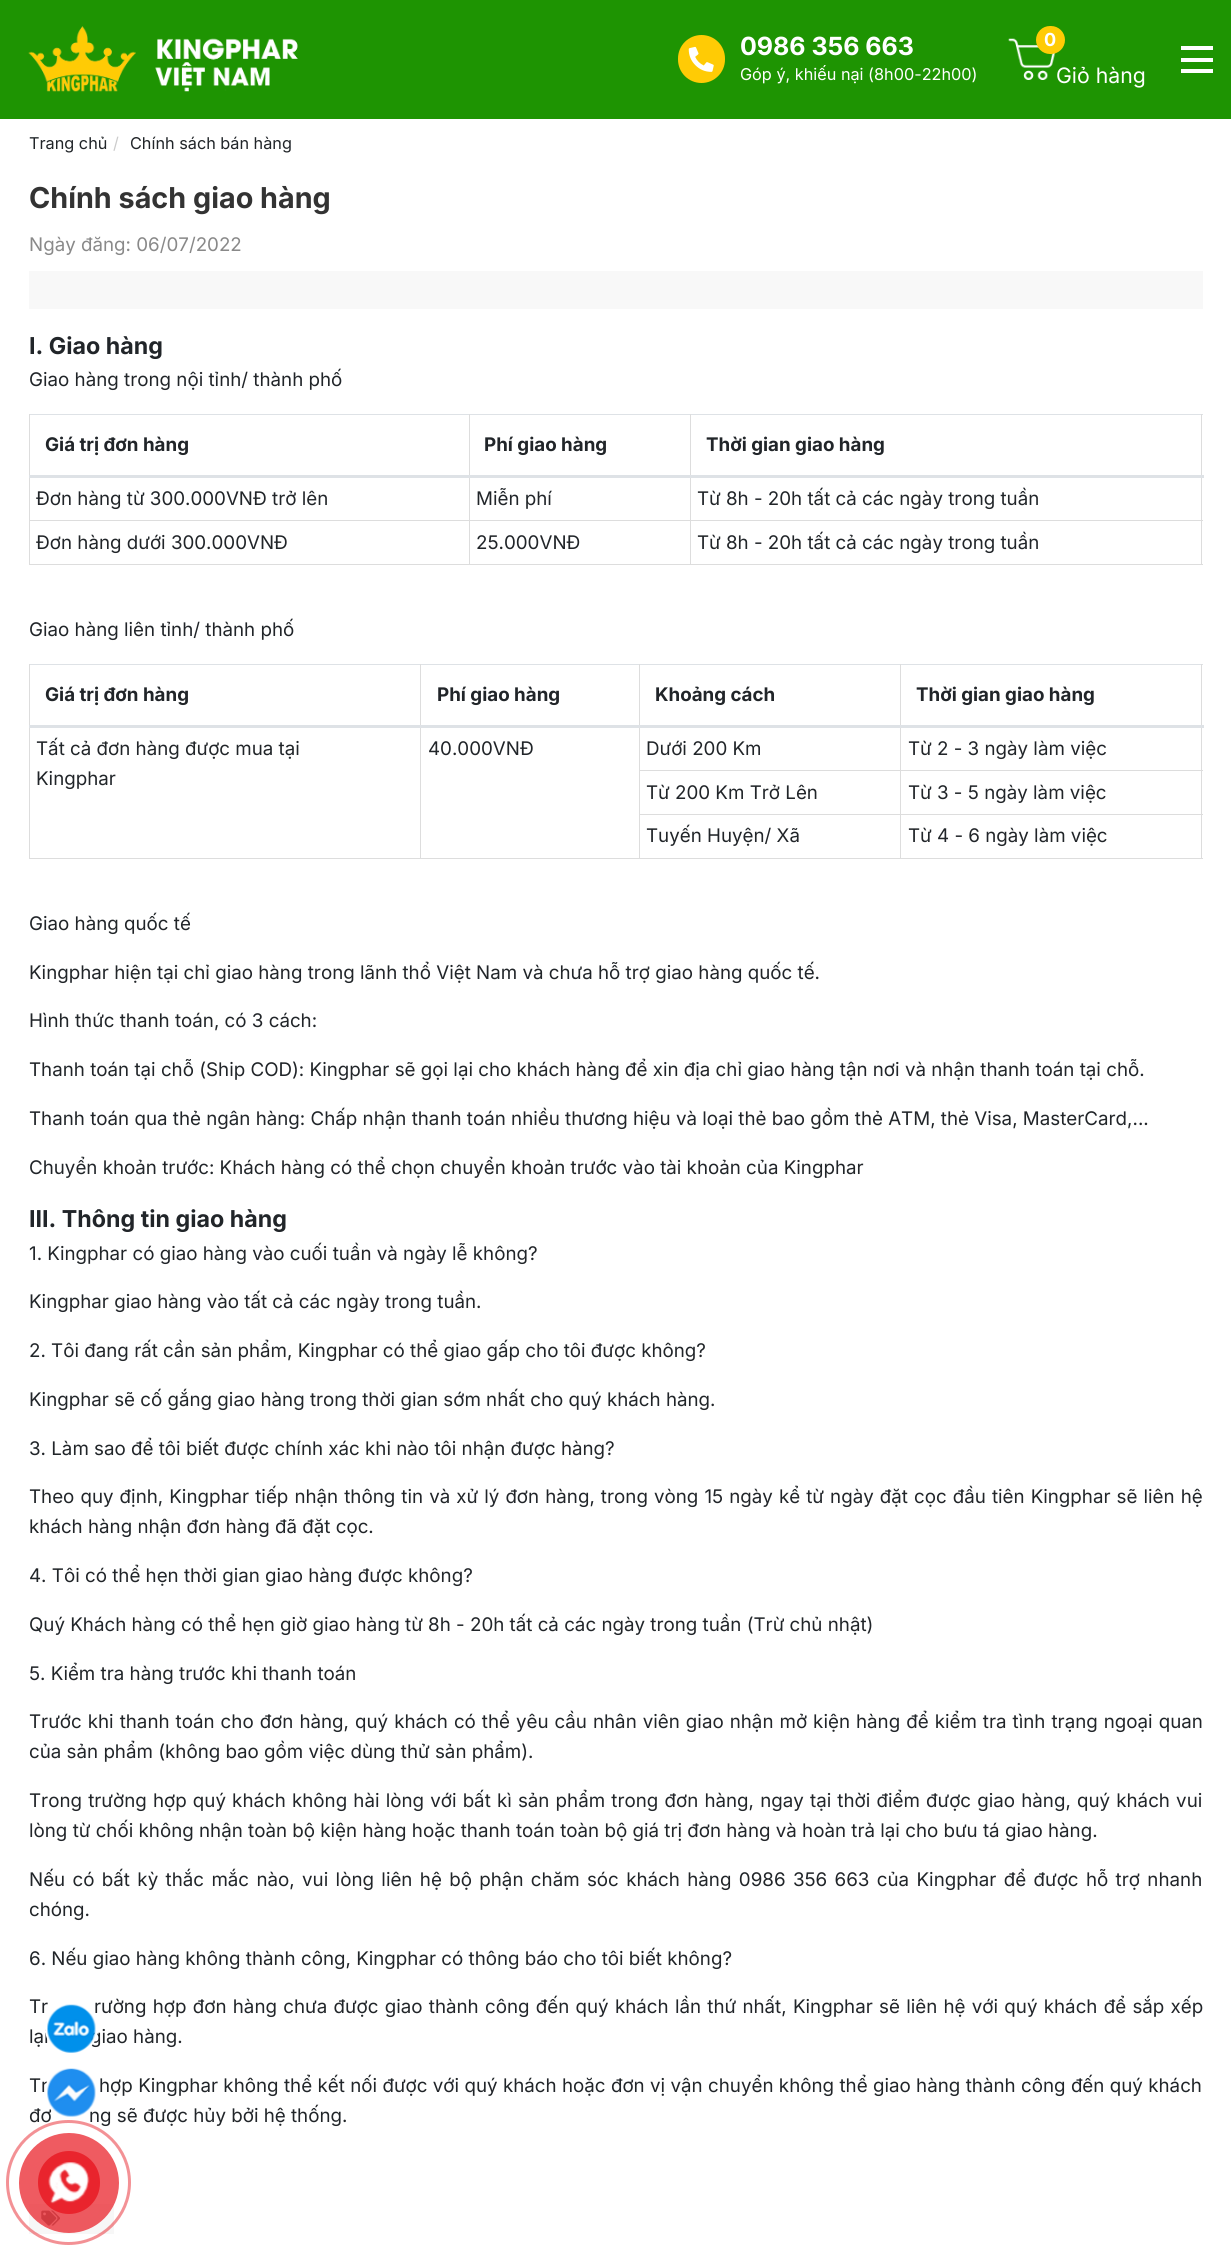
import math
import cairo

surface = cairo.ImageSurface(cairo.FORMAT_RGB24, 1231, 2263)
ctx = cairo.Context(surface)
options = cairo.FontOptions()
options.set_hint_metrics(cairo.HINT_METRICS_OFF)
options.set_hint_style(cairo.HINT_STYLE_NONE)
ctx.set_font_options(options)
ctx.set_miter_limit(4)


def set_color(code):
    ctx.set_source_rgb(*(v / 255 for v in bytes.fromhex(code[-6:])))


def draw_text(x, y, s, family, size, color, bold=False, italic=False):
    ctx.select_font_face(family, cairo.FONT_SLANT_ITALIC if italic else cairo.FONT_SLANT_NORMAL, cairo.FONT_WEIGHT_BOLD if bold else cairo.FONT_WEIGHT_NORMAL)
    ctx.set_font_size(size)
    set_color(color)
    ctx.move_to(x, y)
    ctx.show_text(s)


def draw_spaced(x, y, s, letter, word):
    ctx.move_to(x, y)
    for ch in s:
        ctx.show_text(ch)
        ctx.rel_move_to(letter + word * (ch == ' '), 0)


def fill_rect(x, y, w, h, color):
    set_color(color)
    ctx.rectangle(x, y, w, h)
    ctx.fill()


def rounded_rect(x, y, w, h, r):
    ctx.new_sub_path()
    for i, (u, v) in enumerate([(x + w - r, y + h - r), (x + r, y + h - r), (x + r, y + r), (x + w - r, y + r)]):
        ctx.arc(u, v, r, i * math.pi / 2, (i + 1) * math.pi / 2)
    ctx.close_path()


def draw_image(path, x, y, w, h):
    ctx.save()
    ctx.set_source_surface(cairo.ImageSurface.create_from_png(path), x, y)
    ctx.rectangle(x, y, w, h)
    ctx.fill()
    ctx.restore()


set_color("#ffffff")
ctx.paint()
fill_rect(0, 0, 1231, 119, "#1e9402")
draw_image("assets/img1.png", 28, 26, 270, 66)
set_color("#ffcb05")
rounded_rect(678, 35, 47, 48, 23.5)
ctx.fill()
draw_image("assets/img2.png", 688, 46, 26, 26)
draw_text(740, 55, "0986 356 663", "Inter", 25, "#ffffff", bold=True)
draw_text(740, 80, "Góp ý, khiếu nại (8h00-22h00)", "Inter", 16.25, "#ffffff")
draw_image("assets/img3.png", 1008, 38, 48, 42)
set_color("#ffcb05")
rounded_rect(1036, 26, 29, 28, 14)
ctx.fill()
draw_text(1044, 46, "0", "Inter", 18, "#ffffff", bold=True)
draw_text(1056, 83, "Giỏ hàng", "Inter", 21.25, "#ffffff")
fill_rect(1181, 46, 32, 4, "#ffffff")
fill_rect(1181, 58, 32, 4, "#ffffff")
fill_rect(1181, 69, 32, 4, "#ffffff")
draw_text(29, 149, "Trang chủ", "Inter", 16.25, "#212529")
draw_text(113, 149, "/", "Inter", 16.25, "#cccccc")
draw_text(130, 149, "Chính sách bán hàng", "Inter", 16.25, "#212529")
draw_text(29, 208, "Chính sách giao hàng", "Inter", 28.75, "#333333", bold=True)
draw_text(29, 251, "Ngày đăng: 06/07/2022", "Inter", 18.75, "#898989")
fill_rect(29, 271, 1174, 38, "#f8f8f8")
draw_text(29, 354, "I. Giao hàng", "Inter", 23.25, "#212529", bold=True)
draw_text(29, 386, "Giao hàng trong nội tỉnh/ thành phố", "Inter", 18.75, "#212529")
fill_rect(29, 564, 1174, 1, "#dddddd")
fill_rect(29, 414, 1174, 1, "#dee2e6")
fill_rect(690, 520, 1, 45, "#dddddd")
fill_rect(1201, 475, 1, 90, "#dddddd")
fill_rect(690, 520, 513, 1, "#dddddd")
fill_rect(690, 475, 1, 46, "#dddddd")
fill_rect(469, 520, 1, 45, "#dddddd")
fill_rect(469, 520, 222, 1, "#dddddd")
fill_rect(469, 475, 1, 46, "#dddddd")
fill_rect(469, 414, 1, 62, "#dddddd")
fill_rect(29, 520, 1, 45, "#dddddd")
fill_rect(29, 520, 441, 1, "#dddddd")
fill_rect(29, 475, 1, 46, "#dddddd")
fill_rect(29, 414, 1, 62, "#dddddd")
draw_text(45, 451, "Giá trị đơn hàng", "Inter", 18.75, "#212529", bold=True)
fill_rect(690, 414, 1, 62, "#dddddd")
draw_text(484, 451, "Phí giao hàng", "Inter", 18.75, "#212529", bold=True)
fill_rect(1201, 414, 1, 62, "#dddddd")
fill_rect(29, 475, 1175, 3, "#dee2e6")
draw_text(706, 451, "Thời gian giao hàng", "Inter", 18.75, "#212529", bold=True)
draw_text(36, 505, "Đơn hàng từ 300.000VNĐ trở lên", "Inter", 18.75, "#212529")
draw_text(476, 505, "Miễn phí", "Inter", 18.75, "#212529")
draw_text(697, 505, "Từ 8h - 20h tất cả các ngày trong tuần", "Inter", 18.75, "#212529")
draw_text(36, 549, "Đơn hàng dưới 300.000VNĐ", "Inter", 18.75, "#212529")
draw_text(476, 549, "25.000VNĐ", "Inter", 18.75, "#212529")
draw_text(697, 549, "Từ 8h - 20h tất cả các ngày trong tuần", "Inter", 18.75, "#212529")
draw_text(29, 636, "Giao hàng liên tỉnh/ thành phố", "Inter", 18.75, "#212529")
fill_rect(29, 858, 1174, 1, "#dddddd")
fill_rect(29, 664, 1174, 1, "#dee2e6")
fill_rect(420, 725, 1, 134, "#dddddd")
fill_rect(420, 664, 1, 62, "#dddddd")
fill_rect(29, 725, 1, 134, "#dddddd")
fill_rect(29, 664, 1, 62, "#dddddd")
draw_text(45, 701, "Giá trị đơn hàng", "Inter", 18.75, "#212529", bold=True)
fill_rect(900, 814, 1, 45, "#dddddd")
fill_rect(1201, 725, 1, 134, "#dddddd")
fill_rect(900, 814, 303, 1, "#dddddd")
fill_rect(900, 770, 1, 45, "#dddddd")
fill_rect(900, 770, 303, 1, "#dddddd")
fill_rect(900, 725, 1, 46, "#dddddd")
fill_rect(639, 770, 262, 1, "#dddddd")
fill_rect(639, 814, 262, 1, "#dddddd")
fill_rect(639, 725, 1, 134, "#dddddd")
fill_rect(639, 664, 1, 62, "#dddddd")
draw_text(437, 701, "Phí giao hàng", "Inter", 18.75, "#212529", bold=True)
fill_rect(900, 664, 1, 62, "#dddddd")
draw_text(655, 701, "Khoảng cách", "Inter", 18.75, "#212529", bold=True)
fill_rect(1201, 664, 1, 62, "#dddddd")
fill_rect(29, 725, 1175, 3, "#dee2e6")
draw_text(916, 701, "Thời gian giao hàng", "Inter", 18.75, "#212529", bold=True)
draw_text(36, 755, "Tất cả đơn hàng được mua tại", "Inter", 18.75, "#212529")
draw_text(36, 785, "Kingphar", "Inter", 18.75, "#212529")
draw_text(428, 755, "40.000VNĐ", "Inter", 18.75, "#212529")
draw_text(646, 755, "Dưới 200 Km", "Inter", 18.75, "#212529")
draw_text(908, 755, "Từ 2 - 3 ngày làm việc", "Inter", 18.75, "#212529")
draw_text(646, 799, "Từ 200 Km Trở Lên", "Inter", 18.75, "#212529")
draw_text(908, 799, "Từ 3 - 5 ngày làm việc", "Inter", 18.75, "#212529")
draw_text(646, 842, "Tuyến Huyện/ Xã", "Inter", 18.75, "#212529")
draw_text(908, 842, "Từ 4 - 6 ngày làm việc", "Inter", 18.75, "#212529")
draw_text(29, 930, "Giao hàng quốc tế", "Inter", 18.75, "#212529")
draw_text(29, 979, "Kingphar hiện tại chỉ giao hàng trong lãnh thổ Việt Nam và chưa hỗ trợ giao hàng quốc tế.", "Inter", 18.75, "#212529")
draw_text(29, 1027, "Hình thức thanh toán, có 3 cách:", "Inter", 18.75, "#212529")
draw_text(29, 1076, "Thanh toán tại chỗ (Ship COD): Kingphar sẽ gọi lại cho khách hàng để xin địa chỉ giao hàng tận nơi và nhận thanh toán tại chỗ.", "Inter", 18.75, "#212529")
draw_text(29, 1125, "Thanh toán qua thẻ ngân hàng: Chấp nhận thanh toán nhiều thương hiệu và loại thẻ bao gồm thẻ ATM, thẻ Visa, MasterCard,...", "Inter", 18.75, "#212529")
draw_text(29, 1174, "Chuyển khoản trước: Khách hàng có thể chọn chuyển khoản trước vào tài khoản của Kingphar", "Inter", 18.75, "#212529")
draw_text(29, 1227, "III. Thông tin giao hàng", "Inter", 23.25, "#212529", bold=True)
draw_text(29, 1260, "1. Kingphar có giao hàng vào cuối tuần và ngày lễ không?", "Inter", 18.75, "#212529")
draw_text(29, 1308, "Kingphar giao hàng vào tất cả các ngày trong tuần.", "Inter", 18.75, "#212529")
draw_text(29, 1357, "2. Tôi đang rất cần sản phẩm, Kingphar có thể giao gấp cho tôi được không?", "Inter", 18.75, "#212529")
draw_text(29, 1406, "Kingphar sẽ cố gắng giao hàng trong thời gian sớm nhất cho quý khách hàng.", "Inter", 18.75, "#212529")
draw_text(29, 1455, "3. Làm sao để tôi biết được chính xác khi nào tôi nhận được hàng?", "Inter", 18.75, "#212529")
draw_spaced(29, 1503, "Theo quy định, Kingphar tiếp nhận thông tin và xử lý đơn hàng, trong vòng 15 ngày kể từ ngày đặt cọc đầu tiên Kingphar sẽ liên hệ", 0, 0.8)
draw_text(29, 1533, "khách hàng nhận đơn hàng đã đặt cọc.", "Inter", 18.75, "#212529")
draw_text(29, 1582, "4. Tôi có thể hẹn thời gian giao hàng được không?", "Inter", 18.75, "#212529")
draw_text(29, 1631, "Quý Khách hàng có thể hẹn giờ giao hàng từ 8h - 20h tất cả các ngày trong tuần (Trừ chủ nhật)", "Inter", 18.75, "#212529")
draw_text(29, 1680, "5. Kiểm tra hàng trước khi thanh toán", "Inter", 18.75, "#212529")
draw_spaced(29, 1728, "Trước khi thanh toán cho đơn hàng, quý khách có thể yêu cầu nhân viên giao nhận mở kiện hàng để kiểm tra tình trạng ngoại quan", 0, 0.75)
draw_text(29, 1758, "của sản phẩm (không bao gồm việc dùng thử sản phẩm).", "Inter", 18.75, "#212529")
draw_spaced(29, 1807, "Trong trường hợp quý khách không hài lòng với bất kì sản phẩm trong đơn hàng, ngay tại thời điểm được giao hàng, quý khách vui", 0, 0.9)
draw_text(29, 1837, "lòng từ chối không nhận toàn bộ kiện hàng hoặc thanh toán toàn bộ giá trị đơn hàng và hoàn trả lại cho bưu tá giao hàng.", "Inter", 18.75, "#212529")
draw_spaced(29, 1886, "Nếu có bất kỳ thắc mắc nào, vui lòng liên hệ bộ phận chăm sóc khách hàng 0986 356 663 của Kingphar để được hỗ trợ nhanh", 0, 2.1)
draw_text(29, 1916, "chóng.", "Inter", 18.75, "#212529")
draw_text(29, 1965, "6. Nếu giao hàng không thành công, Kingphar có thông báo cho tôi biết không?", "Inter", 18.75, "#212529")
draw_spaced(29, 2013, "Tr", 0, 1)
draw_spaced(94, 2013, "rường hợp đơn hàng chưa được giao thành công đến quý khách lần thứ nhất, Kingphar sẽ liên hệ với quý khách để sắp xếp", 0, 1)
draw_text(29, 2043, "lại", "Inter", 18.75, "#212529")
draw_text(90, 2043, "giao hàng.", "Inter", 18.75, "#212529")
draw_spaced(29, 2092, "Tr", 0, 0.1)
draw_spaced(99, 2092, "hợp Kingphar không thể kết nối được với quý khách hoặc đơn vị vận chuyển không thể giao hàng thành công đến quý khách", 0, 0.1)
draw_text(29, 2122, "đơ", "Inter", 18.75, "#212529")
draw_text(89, 2122, "ng sẽ được hủy bởi hệ thống.", "Inter", 18.75, "#212529")
fill_rect(29, 2204, 85, 30, "#f7f7f7")
draw_image("assets/img4.png", 41, 2210, 19, 16)
rounded_rect(46.5, 2002.5, 50, 51, 25)
set_color("#ffffff")
ctx.set_line_width(3)
ctx.stroke()
draw_image("assets/img5.png", 47, 2004, 49, 49)
rounded_rect(46.5, 2066.5, 50, 51, 25)
ctx.stroke()
draw_image("assets/img6.png", 47, 2068, 49, 49)
ctx.arc(68.5, 2182.5, 61, 0, 2 * math.pi)
ctx.set_source_rgba(0.914, 0.141, 0.176, 0.5)
ctx.stroke()
ctx.set_source_rgba(0.914, 0.141, 0.176, 0.75)
ctx.arc(69, 2183, 50, 0, 2 * math.pi)
ctx.fill()
set_color("#e9242d")
rounded_rect(38, 2151, 62, 63, 31)
ctx.fill()
draw_image("assets/img7.png", 48, 2162, 42, 42)
surface.write_to_png("output.png")
